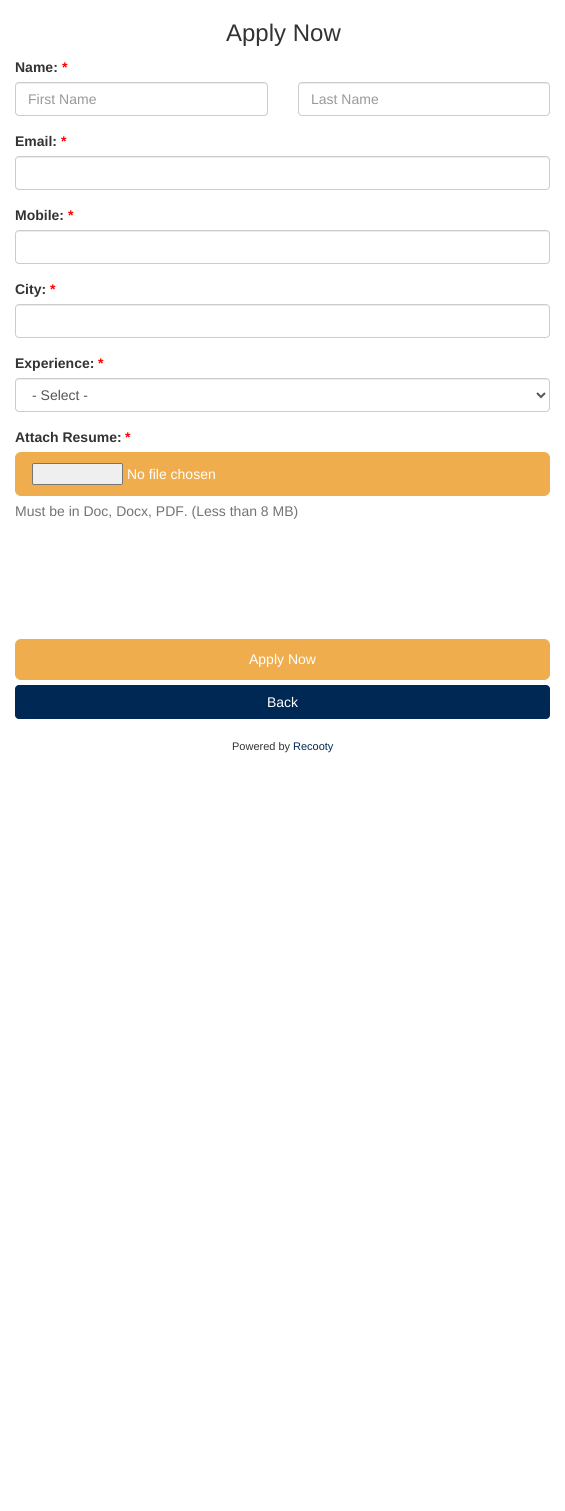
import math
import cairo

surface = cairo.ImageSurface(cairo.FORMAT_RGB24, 565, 1511)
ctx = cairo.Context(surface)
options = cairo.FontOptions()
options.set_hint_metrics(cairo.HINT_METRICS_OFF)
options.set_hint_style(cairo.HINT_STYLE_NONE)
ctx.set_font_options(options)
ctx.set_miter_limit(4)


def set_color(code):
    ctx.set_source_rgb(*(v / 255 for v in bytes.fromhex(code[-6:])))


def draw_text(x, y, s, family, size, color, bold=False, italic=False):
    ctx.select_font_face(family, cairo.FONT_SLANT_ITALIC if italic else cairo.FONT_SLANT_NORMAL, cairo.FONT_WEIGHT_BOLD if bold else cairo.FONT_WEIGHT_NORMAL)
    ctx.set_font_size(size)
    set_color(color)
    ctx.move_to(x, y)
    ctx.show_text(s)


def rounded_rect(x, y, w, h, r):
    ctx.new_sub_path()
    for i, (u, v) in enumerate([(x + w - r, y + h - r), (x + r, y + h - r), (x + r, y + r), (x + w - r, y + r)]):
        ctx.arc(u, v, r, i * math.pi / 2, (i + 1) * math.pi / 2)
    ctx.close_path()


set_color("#ffffff")
ctx.paint()
draw_text(226, 41, "Apply Now", "Liberation Sans", 24, "#333333")
draw_text(15, 72, "Name:", "Liberation Sans", 14, "#333333", bold=True)
draw_text(62, 72, "*", "Liberation Sans", 14, "#ff0000", bold=True)
set_color("#ececec")
ctx.new_path()
ctx.move_to(19, 84)
ctx.line_to(265, 84)
ctx.line_to(267, 85)
ctx.line_to(267, 87)
ctx.curve_to(267, 85, 266, 83, 264, 83)
ctx.line_to(19, 83)
ctx.curve_to(17, 83, 16, 85, 16, 87)
ctx.curve_to(16, 85, 17, 84, 19, 84)
ctx.close_path()
ctx.fill()
rounded_rect(15.5, 82.5, 252, 33, 3.5)
set_color("#cccccc")
ctx.set_line_width(1)
ctx.stroke()
draw_text(28, 104, "First Name", "Liberation Sans", 14, "#999999")
set_color("#ececec")
ctx.new_path()
ctx.move_to(302, 84)
ctx.line_to(547, 84)
ctx.line_to(549, 85)
ctx.line_to(549, 87)
ctx.curve_to(549, 85, 548, 83, 546, 83)
ctx.line_to(302, 83)
ctx.curve_to(300, 83, 299, 85, 299, 87)
ctx.curve_to(299, 85, 300, 84, 302, 84)
ctx.close_path()
ctx.fill()
rounded_rect(298.5, 82.5, 251, 33, 3.5)
set_color("#cccccc")
ctx.stroke()
draw_text(311, 104, "Last Name", "Liberation Sans", 14, "#999999")
draw_text(15, 146, "Email:", "Liberation Sans", 14, "#333333", bold=True)
draw_text(61, 146, "*", "Liberation Sans", 14, "#ff0000", bold=True)
set_color("#ececec")
ctx.new_path()
ctx.move_to(19, 158)
ctx.line_to(546, 158)
ctx.curve_to(548, 158, 549, 159, 549, 161)
ctx.line_to(548, 158)
ctx.line_to(546, 157)
ctx.line_to(19, 157)
ctx.curve_to(17, 157, 16, 159, 16, 161)
ctx.curve_to(16, 159, 17, 158, 19, 158)
ctx.close_path()
ctx.fill()
rounded_rect(15.5, 156.5, 534, 33, 3.5)
set_color("#cccccc")
ctx.stroke()
draw_text(15, 220, "Mobile:", "Liberation Sans", 14, "#333333", bold=True)
draw_text(68, 220, "*", "Liberation Sans", 14, "#ff0000", bold=True)
set_color("#ececec")
ctx.new_path()
ctx.move_to(19, 232)
ctx.line_to(546, 232)
ctx.curve_to(548, 232, 549, 233, 549, 235)
ctx.line_to(548, 232)
ctx.line_to(546, 231)
ctx.line_to(19, 231)
ctx.curve_to(17, 231, 16, 233, 16, 235)
ctx.curve_to(16, 233, 17, 232, 19, 232)
ctx.close_path()
ctx.fill()
rounded_rect(15.5, 230.5, 534, 33, 3.5)
set_color("#cccccc")
ctx.stroke()
draw_text(15, 294, "City:", "Liberation Sans", 14, "#333333", bold=True)
draw_text(50, 294, "*", "Liberation Sans", 14, "#ff0000", bold=True)
set_color("#ececec")
ctx.new_path()
ctx.move_to(19, 306)
ctx.line_to(546, 306)
ctx.curve_to(548, 306, 549, 307, 549, 309)
ctx.line_to(548, 306)
ctx.line_to(546, 305)
ctx.line_to(19, 305)
ctx.curve_to(17, 305, 16, 307, 16, 309)
ctx.curve_to(16, 307, 17, 306, 19, 306)
ctx.close_path()
ctx.fill()
rounded_rect(15.5, 304.5, 534, 33, 3.5)
set_color("#cccccc")
ctx.stroke()
draw_text(15, 368, "Experience:", "Liberation Sans", 14, "#333333", bold=True)
draw_text(98, 368, "*", "Liberation Sans", 14, "#ff0000", bold=True)
set_color("#ececec")
ctx.new_path()
ctx.move_to(19, 380)
ctx.line_to(546, 380)
ctx.curve_to(548, 380, 549, 381, 549, 383)
ctx.line_to(548, 380)
ctx.line_to(546, 379)
ctx.line_to(19, 379)
ctx.curve_to(17, 379, 16, 381, 16, 383)
ctx.curve_to(16, 381, 17, 380, 19, 380)
ctx.close_path()
ctx.fill()
rounded_rect(15.5, 378.5, 534, 33, 3.5)
set_color("#cccccc")
ctx.stroke()
ctx.new_path()
ctx.move_to(537, 393)
ctx.line_to(541, 397)
ctx.line_to(545, 393)
set_color("#555555")
ctx.set_line_width(2)
ctx.stroke()
draw_text(32, 400, "- Select -", "Liberation Sans", 14, "#555555")
draw_text(15, 442, "Attach Resume:", "Liberation Sans", 14, "#333333", bold=True)
draw_text(125, 442, "*", "Liberation Sans", 14, "#ff0000", bold=True)
set_color("#f0ad4e")
rounded_rect(15.5, 452.5, 534, 43, 5.5)
ctx.fill_preserve()
ctx.set_line_width(1)
ctx.stroke()
set_color("#efefef")
rounded_rect(32.5, 463.5, 90, 21, 1.5)
ctx.fill_preserve()
set_color("#767676")
ctx.stroke()
draw_text(127, 479, "No file chosen", "Liberation Sans", 14, "#ffffff")
draw_text(15, 516, "Must be in Doc, Docx, PDF. (Less than 8 MB)", "Liberation Sans", 14, "#737373")
set_color("#f0ad4e")
rounded_rect(15.5, 639.5, 534, 40, 5.5)
ctx.fill_preserve()
ctx.stroke()
draw_text(249, 664, "Apply Now", "Liberation Sans", 14, "#ffffff")
set_color("#002855")
rounded_rect(15.5, 685.5, 534, 33, 3.5)
ctx.fill_preserve()
ctx.stroke()
draw_text(267, 707, "Back", "Liberation Sans", 14, "#ffffff")
draw_text(232, 750, "Powered by", "Liberation Sans", 11, "#333333")
draw_text(293, 750, "Recooty", "Liberation Sans", 11, "#002855")
surface.write_to_png("output.png")
